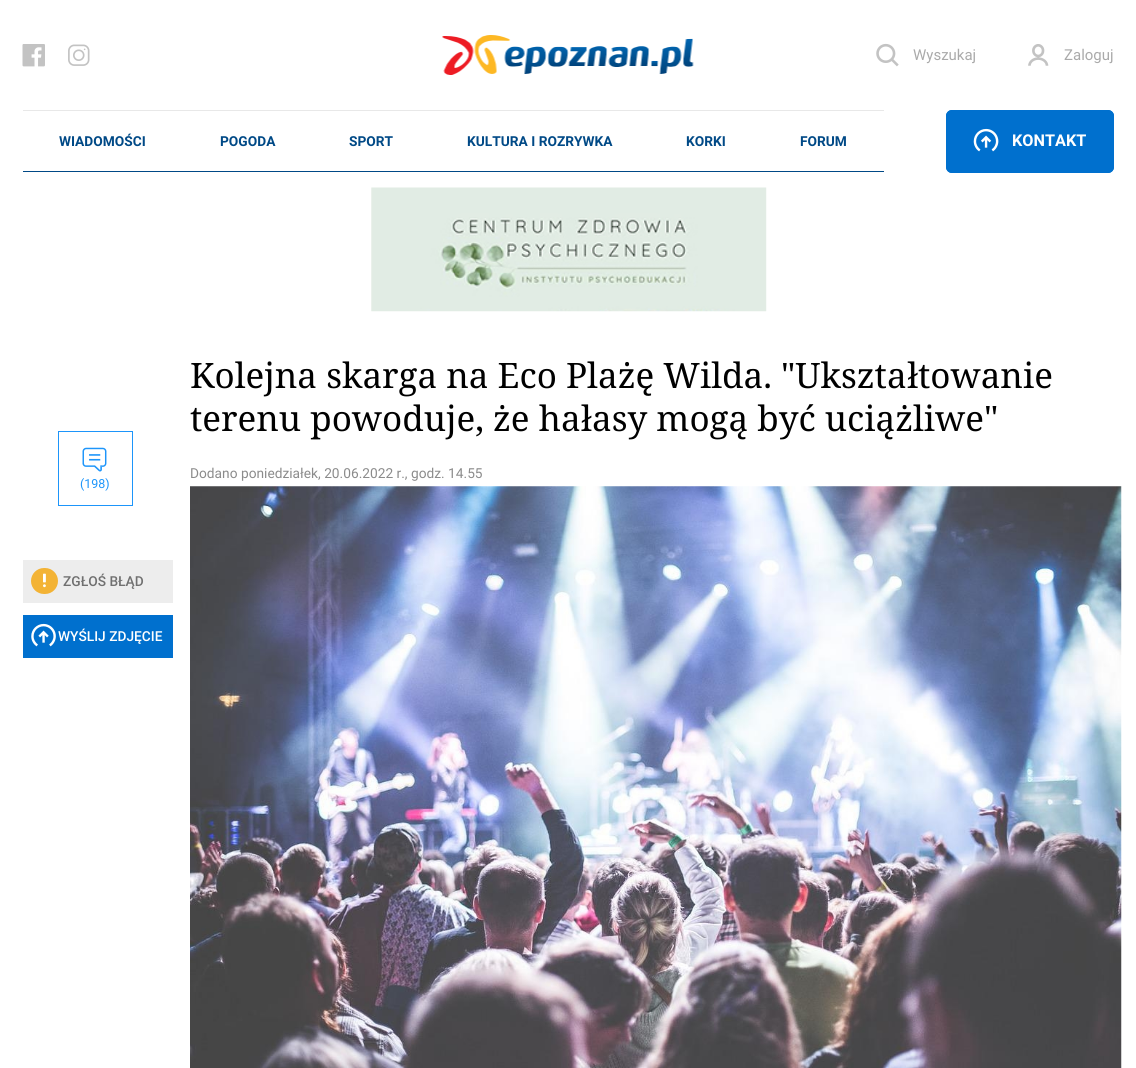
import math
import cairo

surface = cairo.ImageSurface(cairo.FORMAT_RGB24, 1136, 1068)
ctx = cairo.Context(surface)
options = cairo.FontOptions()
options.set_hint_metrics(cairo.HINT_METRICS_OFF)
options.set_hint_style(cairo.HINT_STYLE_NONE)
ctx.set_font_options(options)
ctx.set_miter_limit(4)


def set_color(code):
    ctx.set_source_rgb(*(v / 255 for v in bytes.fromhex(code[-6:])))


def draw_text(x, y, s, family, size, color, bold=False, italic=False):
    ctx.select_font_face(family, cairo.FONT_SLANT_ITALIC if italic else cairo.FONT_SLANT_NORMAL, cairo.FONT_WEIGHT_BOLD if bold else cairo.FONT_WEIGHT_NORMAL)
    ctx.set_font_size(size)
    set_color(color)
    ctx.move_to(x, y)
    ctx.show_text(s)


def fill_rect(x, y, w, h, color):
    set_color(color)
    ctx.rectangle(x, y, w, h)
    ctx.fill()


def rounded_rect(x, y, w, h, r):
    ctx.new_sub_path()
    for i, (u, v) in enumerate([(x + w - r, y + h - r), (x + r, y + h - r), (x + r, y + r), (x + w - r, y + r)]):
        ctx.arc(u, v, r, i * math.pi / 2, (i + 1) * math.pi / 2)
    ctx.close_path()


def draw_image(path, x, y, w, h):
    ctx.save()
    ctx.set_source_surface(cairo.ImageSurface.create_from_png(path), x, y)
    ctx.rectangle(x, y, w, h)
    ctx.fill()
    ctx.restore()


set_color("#ffffff")
ctx.paint()
draw_image("assets/img1.png", 22, 44, 23, 23)
draw_image("assets/img2.png", 68, 44, 22, 22)
draw_image("assets/img3.png", 442, 35, 252, 40)
draw_image("assets/img4.png", 876, 43, 23, 24)
draw_text(913, 60, "Wyszukaj", "Roboto", 15, "#aaaaaa")
draw_image("assets/img5.png", 1028, 44, 21, 22)
draw_text(1064, 60, "Zaloguj", "Roboto", 15, "#aaaaaa")
fill_rect(23, 110, 861, 1, "#e8e8e8")
fill_rect(23, 171, 861, 1, "#004986")
draw_text(59, 146, "WIADOMOŚCI", "Roboto", 13.75, "#004986", bold=True)
draw_text(220, 146, "POGODA", "Roboto", 13.75, "#004986", bold=True)
draw_text(349, 146, "SPORT", "Roboto", 13.75, "#004986", bold=True)
draw_text(467, 146, "KULTURA I ROZRYWKA", "Roboto", 13.75, "#004986", bold=True)
draw_text(686, 146, "KORKI", "Roboto", 13.75, "#004986", bold=True)
draw_text(800, 146, "FORUM", "Roboto", 13.75, "#004986", bold=True)
set_color("#0070ce")
rounded_rect(946, 110, 168, 63, 6)
ctx.fill()
draw_image("assets/img6.png", 973, 128, 26, 24)
rounded_rect(947.5, 111.5, 165, 60, 4.5)
ctx.set_line_width(3)
ctx.stroke()
draw_text(1012, 146, "KONTAKT", "Roboto", 16.25, "#ffffff", bold=True)
draw_image("assets/img7.png", 371, 187, 396, 125)
draw_text(190, 388, "Kolejna skarga na Eco Plażę Wilda. \"Ukształtowanie", "Noto Serif", 35, "#000000")
draw_text(190, 431, "terenu powoduje, że hałasy mogą być uciążliwe\"", "Noto Serif", 35, "#000000")
draw_text(190, 478, "Dodano poniedziałek, 20.06.2022 r., godz. 14.55", "Roboto", 13.75, "#8b8b8b")
draw_image("assets/img8.png", 190, 486, 932, 582)
ctx.rectangle(58.5, 431.5, 74, 74)
set_color("#1d95fa")
ctx.set_line_width(1)
ctx.stroke()
draw_image("assets/img9.png", 82, 447, 25, 25)
draw_text(80, 488, "(198)", "Roboto", 12.5, "#1d95fa")
fill_rect(23, 560, 150, 43, "#ededed")
set_color("#f3b335")
rounded_rect(31, 568, 27, 26, 13)
ctx.fill()
draw_image("assets/img10.png", 43, 573, 3, 15)
draw_text(63, 586, "ZGŁOŚ BŁĄD", "Roboto Medium", 13.75, "#707070")
fill_rect(23, 615, 150, 43, "#0070ce")
draw_image("assets/img11.png", 31, 623, 25, 24)
draw_text(58, 641, "WYŚLIJ ZDJĘCIE", "Roboto Medium", 13.75, "#ffffff")
surface.write_to_png("output.png")
